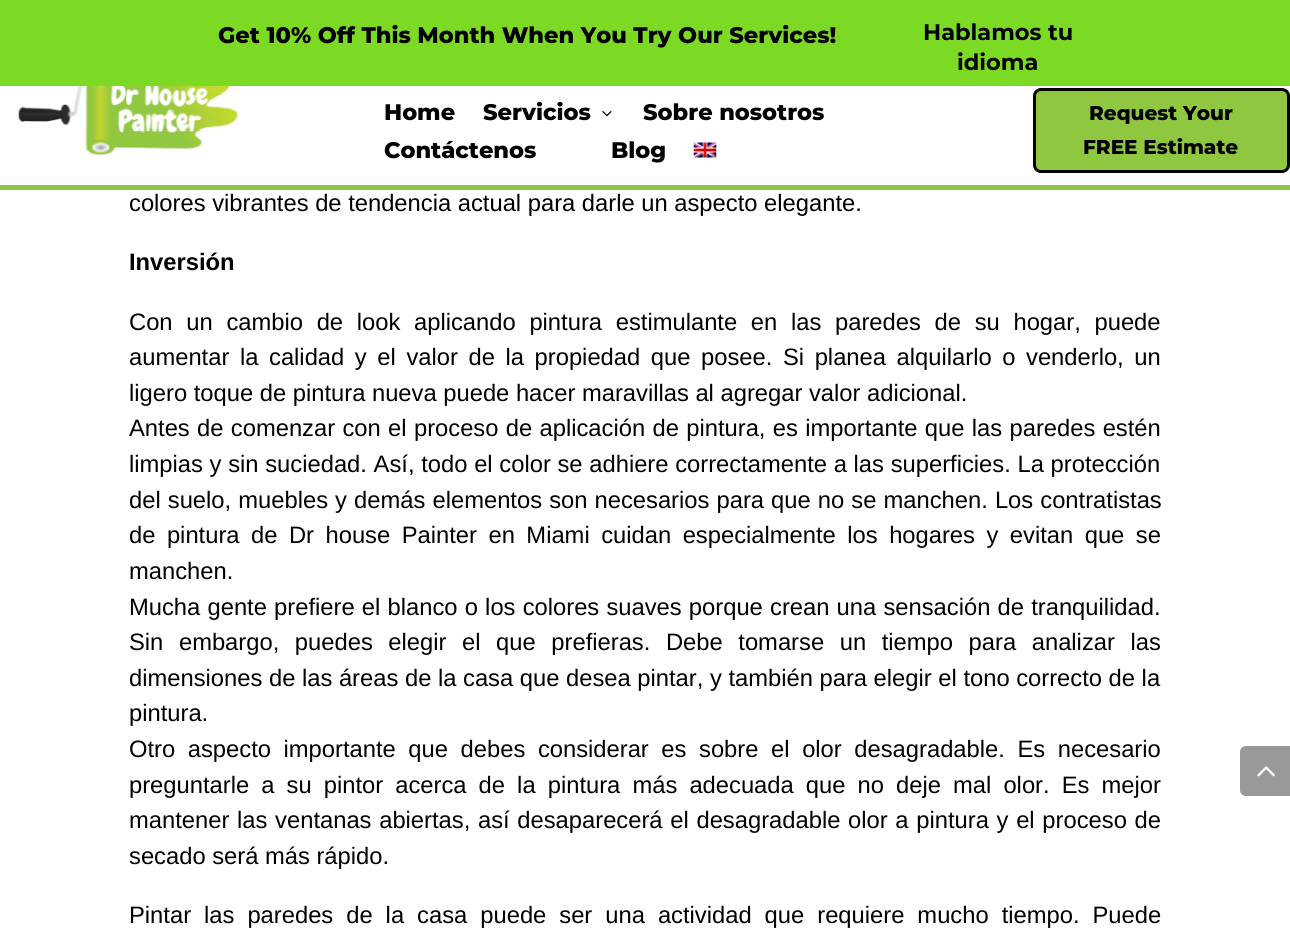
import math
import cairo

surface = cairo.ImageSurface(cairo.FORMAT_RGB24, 1290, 952)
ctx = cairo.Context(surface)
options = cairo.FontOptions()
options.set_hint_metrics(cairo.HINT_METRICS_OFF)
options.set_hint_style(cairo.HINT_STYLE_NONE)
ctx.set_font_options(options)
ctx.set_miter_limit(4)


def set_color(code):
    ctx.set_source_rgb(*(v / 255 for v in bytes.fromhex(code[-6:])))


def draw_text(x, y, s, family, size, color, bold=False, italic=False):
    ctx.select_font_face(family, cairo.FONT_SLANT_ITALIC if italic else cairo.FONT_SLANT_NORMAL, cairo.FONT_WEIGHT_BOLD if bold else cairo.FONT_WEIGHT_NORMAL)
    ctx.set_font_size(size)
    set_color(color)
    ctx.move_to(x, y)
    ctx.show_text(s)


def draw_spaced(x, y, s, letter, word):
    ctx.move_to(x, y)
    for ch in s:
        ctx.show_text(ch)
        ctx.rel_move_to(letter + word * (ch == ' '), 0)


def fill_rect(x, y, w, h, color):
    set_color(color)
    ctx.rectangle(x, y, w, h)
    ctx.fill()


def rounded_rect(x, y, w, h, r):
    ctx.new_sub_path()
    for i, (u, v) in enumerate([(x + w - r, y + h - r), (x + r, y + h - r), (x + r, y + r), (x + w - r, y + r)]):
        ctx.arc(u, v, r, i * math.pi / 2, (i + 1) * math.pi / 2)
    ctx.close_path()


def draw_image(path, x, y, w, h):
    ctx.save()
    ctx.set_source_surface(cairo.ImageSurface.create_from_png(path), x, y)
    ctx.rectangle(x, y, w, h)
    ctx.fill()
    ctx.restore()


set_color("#ffffff")
ctx.paint()
fill_rect(0, 0, 1290, 86, "#7cda24")
draw_text(218, 43, "Get 10% Off This Month When You Try Our Services!", "Montserrat ExtraBold", 22.5, "#000000")
draw_text(923, 40, "Hablamos tu", "Montserrat", 22.5, "#000000", bold=True)
draw_text(957, 70, "idioma", "Montserrat", 22.5, "#000000", bold=True)
fill_rect(0, 185, 1290, 5, "#90c740")
draw_image("assets/img1.png", 18, 86, 221, 70)
draw_text(384, 120, "Home", "Montserrat ExtraBold", 22.5, "#000000")
draw_text(483, 120, "Servicios", "Montserrat ExtraBold", 22.5, "#000000")
draw_image("assets/img2.png", 602, 111, 10, 6)
draw_text(643, 120, "Sobre nosotros", "Montserrat ExtraBold", 22.5, "#000000")
draw_text(384, 158, "Contáctenos", "Montserrat ExtraBold", 22.5, "#000000")
draw_text(611, 158, "Blog", "Montserrat ExtraBold", 22.5, "#000000")
draw_image("assets/img3.png", 693, 142, 24, 16)
set_color("#90c740")
rounded_rect(1034.5, 89.5, 254, 82, 6.5)
ctx.fill_preserve()
set_color("#000000")
ctx.set_line_width(3)
ctx.stroke()
draw_text(1089, 120, "Request Your", "Montserrat ExtraBold", 20, "#000000")
draw_text(1083, 154, "FREE Estimate", "Montserrat ExtraBold", 20, "#000000")
draw_text(129, 211, "colores vibrantes de tendencia actual para darle un aspecto elegante.", "Liberation Sans", 23.75, "#000000")
draw_text(129, 270, "Inversión", "Liberation Sans", 23.75, "#000000", bold=True)
ctx.select_font_face("Liberation Sans")
draw_spaced(129, 330, "Con un cambio de look aplicando pintura estimulante en las paredes de su hogar, puede", 0, 7.1)
draw_spaced(129, 365, "aumentar la calidad y el valor de la propiedad que posee. Si planea alquilarlo o venderlo, un", 0, 4)
draw_text(129, 401, "ligero toque de pintura nueva puede hacer maravillas al agregar valor adicional.", "Liberation Sans", 23.75, "#000000")
draw_spaced(129, 436, "Antes de comenzar con el proceso de aplicación de pintura, es importante que las paredes estén", 0, 0.75)
draw_spaced(129, 472, "limpias y sin suciedad. Así, todo el color se adhiere correctamente a las superficies. La protección", 0, 0.1)
draw_spaced(129, 508, "del suelo, muebles y demás elementos son necesarios para que no se manchen. Los contratistas", 0, 0.5)
draw_spaced(129, 543, "de pintura de Dr house Painter en Miami cuidan especialmente los hogares y evitan que se", 0, 4.9)
draw_text(129, 579, "manchen.", "Liberation Sans", 23.75, "#000000")
draw_spaced(129, 615, "Mucha gente prefiere el blanco o los colores suaves porque crean una sensación de tranquilidad.", 0, 0.6)
draw_spaced(129, 650, "Sin embargo, puedes elegir el que prefieras. Debe tomarse un tiempo para analizar las", 0, 9)
draw_text(129, 686, "dimensiones de las áreas de la casa que desea pintar, y también para elegir el tono correcto de la", "Liberation Sans", 23.75, "#000000")
draw_text(129, 721, "pintura.", "Liberation Sans", 23.75, "#000000")
draw_spaced(129, 757, "Otro aspecto importante que debes considerar es sobre el olor desagradable. Es necesario", 0, 6)
draw_spaced(129, 793, "preguntarle a su pintor acerca de la pintura más adecuada que no deje mal olor. Es mejor", 0, 5.5)
draw_spaced(129, 828, "mantener las ventanas abiertas, así desaparecerá el desagradable olor a pintura y el proceso de", 0, 1.1)
draw_text(129, 864, "secado será más rápido.", "Liberation Sans", 23.75, "#000000")
draw_spaced(129, 923, "Pintar las paredes de la casa puede ser una actividad que requiere mucho tiempo. Puede", 0, 6.4)
set_color("#999999")
ctx.new_path()
ctx.move_to(1246, 746)
ctx.line_to(1290, 746)
ctx.line_to(1290, 796)
ctx.line_to(1246, 796)
ctx.curve_to(1242.5, 796, 1240, 793.5, 1240, 790)
ctx.line_to(1240, 752)
ctx.curve_to(1240, 748.5, 1242.5, 746, 1246, 746)
ctx.close_path()
ctx.fill()
draw_image("assets/img4.png", 1257, 766, 18, 11)
surface.write_to_png("output.png")
